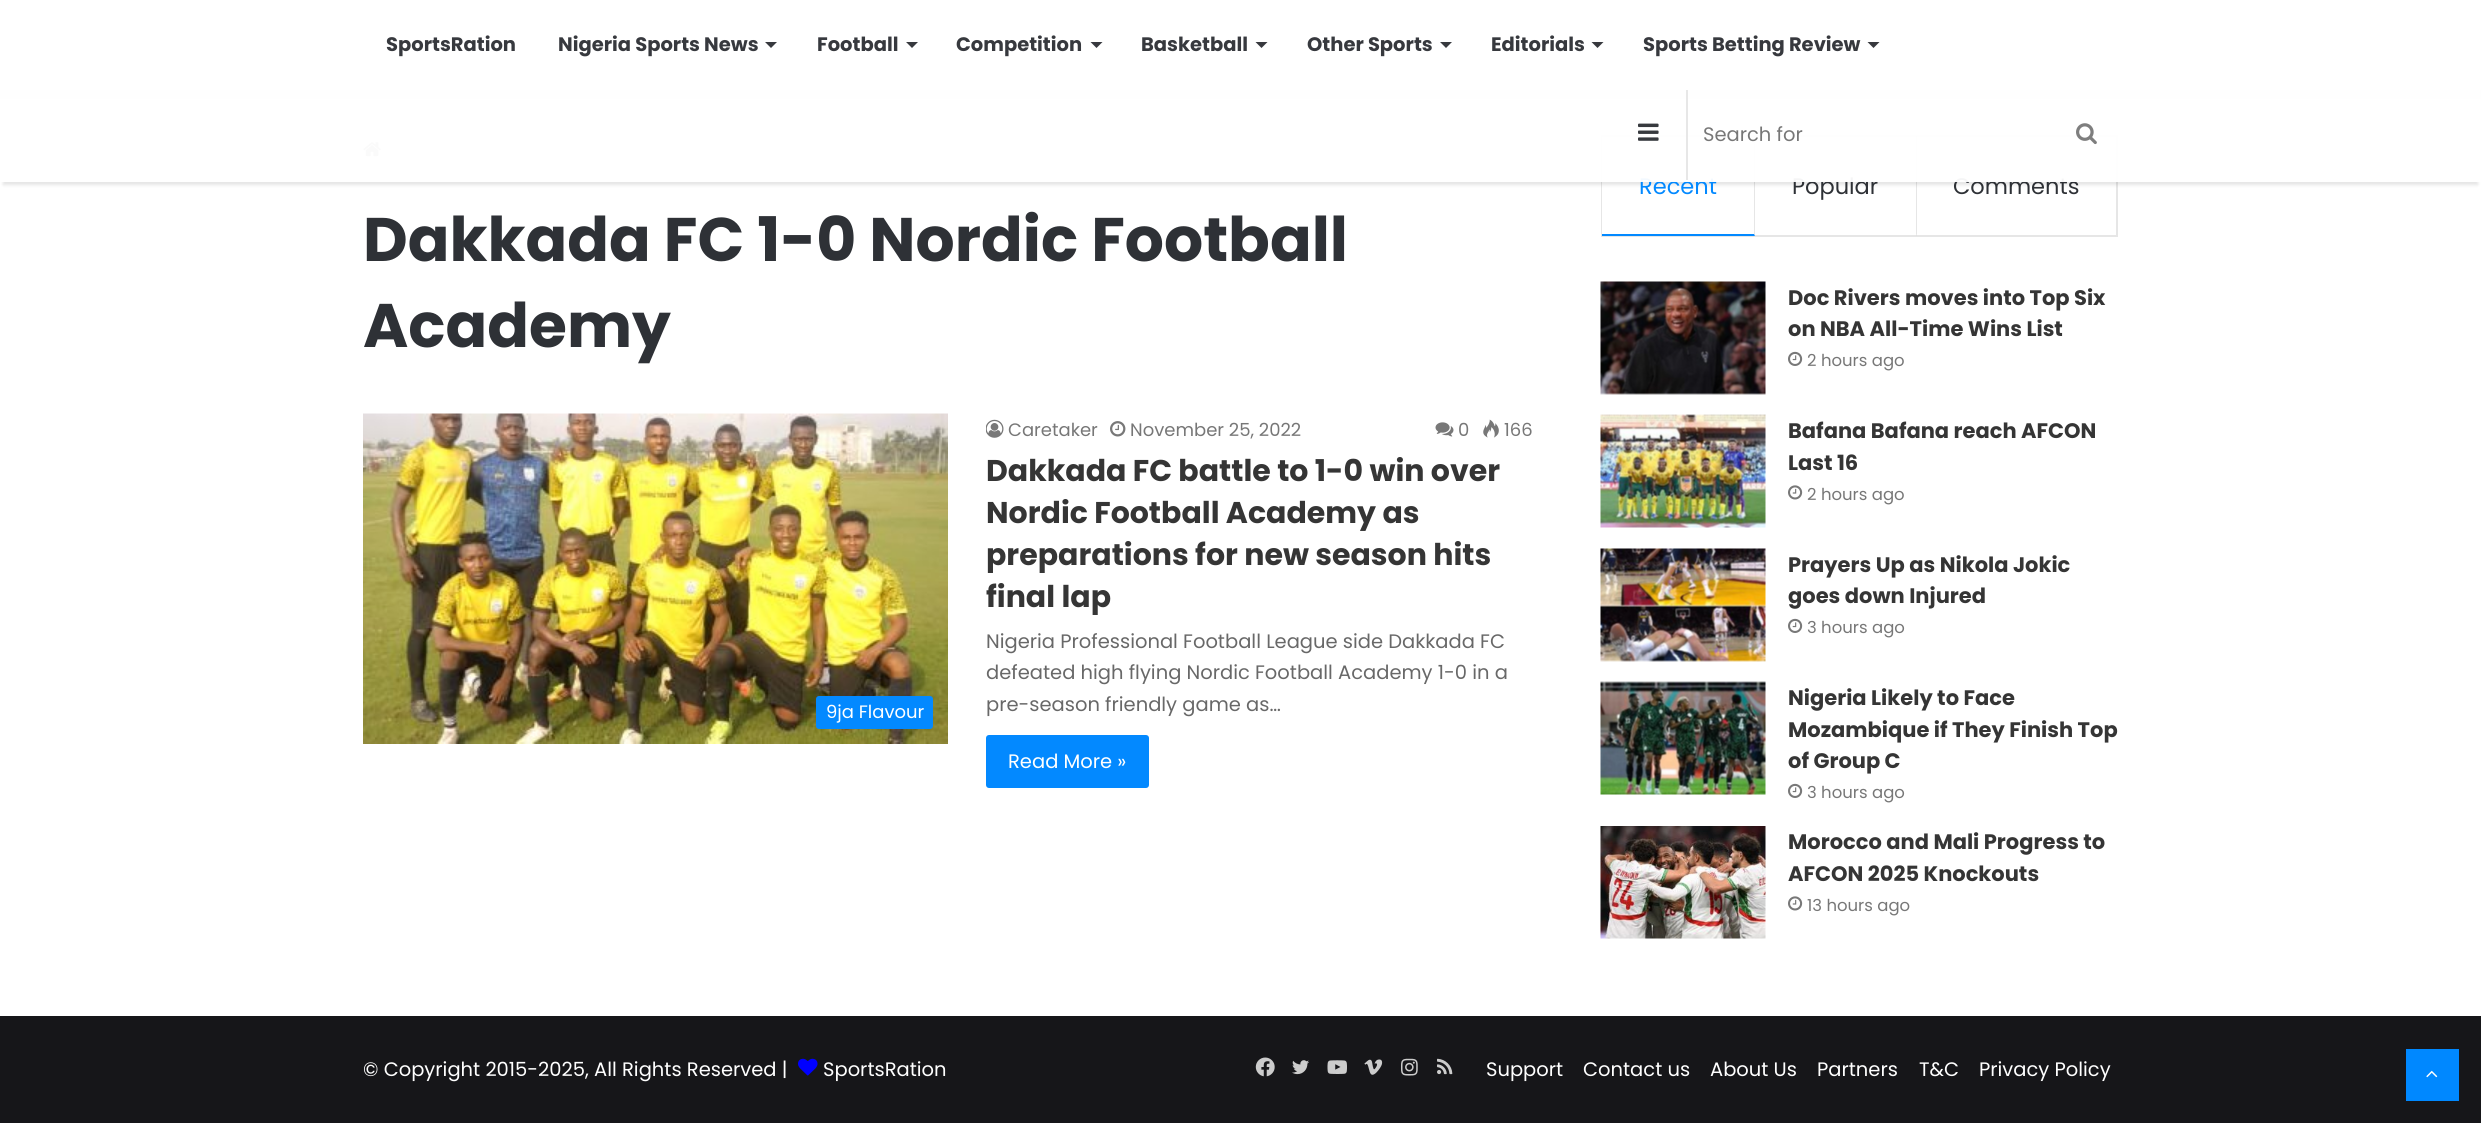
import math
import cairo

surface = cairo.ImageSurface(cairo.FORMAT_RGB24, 2481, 1123)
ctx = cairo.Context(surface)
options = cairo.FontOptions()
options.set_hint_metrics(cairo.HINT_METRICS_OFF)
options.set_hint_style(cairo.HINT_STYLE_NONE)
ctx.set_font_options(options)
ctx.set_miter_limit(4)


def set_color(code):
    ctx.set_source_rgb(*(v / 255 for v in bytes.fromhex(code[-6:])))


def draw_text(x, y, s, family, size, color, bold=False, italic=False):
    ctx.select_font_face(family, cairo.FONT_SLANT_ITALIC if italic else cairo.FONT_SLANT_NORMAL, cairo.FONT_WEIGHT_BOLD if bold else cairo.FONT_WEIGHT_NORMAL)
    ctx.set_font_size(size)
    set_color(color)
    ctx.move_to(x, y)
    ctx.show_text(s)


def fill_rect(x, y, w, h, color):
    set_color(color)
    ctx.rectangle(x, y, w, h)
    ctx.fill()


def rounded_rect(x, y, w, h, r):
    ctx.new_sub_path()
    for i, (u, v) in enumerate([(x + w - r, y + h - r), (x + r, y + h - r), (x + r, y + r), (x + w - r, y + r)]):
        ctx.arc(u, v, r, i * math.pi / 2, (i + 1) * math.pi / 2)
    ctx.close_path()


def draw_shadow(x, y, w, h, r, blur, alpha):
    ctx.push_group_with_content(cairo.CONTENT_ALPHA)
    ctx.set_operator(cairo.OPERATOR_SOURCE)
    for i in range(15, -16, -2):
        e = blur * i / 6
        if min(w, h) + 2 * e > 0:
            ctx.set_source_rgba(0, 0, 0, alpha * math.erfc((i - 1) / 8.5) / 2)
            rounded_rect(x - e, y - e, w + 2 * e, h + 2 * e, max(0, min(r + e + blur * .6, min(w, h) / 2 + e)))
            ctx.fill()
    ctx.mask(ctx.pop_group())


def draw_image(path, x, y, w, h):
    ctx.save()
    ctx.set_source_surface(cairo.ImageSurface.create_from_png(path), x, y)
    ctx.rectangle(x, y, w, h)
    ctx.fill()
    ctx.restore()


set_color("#ffffff")
ctx.paint()
ctx.save()
ctx.rectangle(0, 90, 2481, 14)
ctx.clip()
set_color("#000000")
draw_shadow(-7, -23, 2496, 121, 0, 7.5, 0.1)
ctx.restore()
draw_image("assets/img3.png", 363, 142, 18, 15)
ctx.rectangle(1602, 136, 515, 100)
set_color("#e6e6e6")
ctx.stroke()
fill_rect(1602, 137, 153, 99, "#ffffff")
ctx.set_source_rgba(0.012, 0.012, 0.012, 0.1)
ctx.new_path()
ctx.move_to(1755, 136)
ctx.line_to(1755, 236)
ctx.line_to(1754, 234)
ctx.line_to(1754, 136)
ctx.close_path()
ctx.fill()
ctx.new_path()
ctx.move_to(1917, 136)
ctx.line_to(1917, 236)
ctx.line_to(1916, 234)
ctx.line_to(1916, 136)
ctx.close_path()
ctx.fill()
ctx.save()
ctx.set_fill_rule(cairo.FILL_RULE_EVEN_ODD)
ctx.new_path()
ctx.move_to(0, 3)
ctx.line_to(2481, 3)
ctx.line_to(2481, 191)
ctx.line_to(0, 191)
ctx.close_path()
ctx.move_to(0, 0)
ctx.line_to(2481, 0)
ctx.line_to(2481, 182)
ctx.line_to(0, 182)
ctx.close_path()
ctx.clip()
set_color("#000000")
draw_shadow(3, 9, 2475, 176, 0, 1.5, 0.1)
ctx.restore()
draw_text(1639, 194, "Recent", "Poppins", 22.5, "#0389ff")
draw_text(1792, 194, "Popular", "Poppins", 22.5, "#2e3136")
draw_text(1953, 194, "Comments", "Poppins", 22.5, "#2e3136")
ctx.set_source_rgba(1, 1, 1, 0.95)
ctx.rectangle(0, 90, 2481, 92)
ctx.fill()
draw_text(386, 51, "SportsRation", "Poppins", 19.5, "#37393e", bold=True)
draw_text(558, 51, "Nigeria Sports News", "Poppins", 19.5, "#37393e", bold=True)
ctx.new_path()
ctx.move_to(765, 42)
ctx.line_to(777, 42)
ctx.line_to(771, 48)
ctx.close_path()
ctx.fill()
draw_text(817, 51, "Football", "Poppins", 19.5, "#37393e", bold=True)
ctx.new_path()
ctx.move_to(906, 42)
ctx.line_to(918, 42)
ctx.line_to(912, 48)
ctx.close_path()
ctx.fill()
draw_text(956, 51, "Competition", "Poppins", 19.5, "#37393e", bold=True)
ctx.new_path()
ctx.move_to(1090.5, 42)
ctx.line_to(1102.5, 42)
ctx.line_to(1096.5, 48)
ctx.close_path()
ctx.fill()
draw_text(1141, 51, "Basketball", "Poppins", 19.5, "#37393e", bold=True)
ctx.new_path()
ctx.move_to(1255.5, 42)
ctx.line_to(1267.5, 42)
ctx.line_to(1261.5, 48)
ctx.close_path()
ctx.fill()
draw_text(1307, 51, "Other Sports", "Poppins", 19.5, "#37393e", bold=True)
ctx.new_path()
ctx.move_to(1440, 42)
ctx.line_to(1452, 42)
ctx.line_to(1446, 48)
ctx.close_path()
ctx.fill()
draw_text(1491, 51, "Editorials", "Poppins", 19.5, "#37393e", bold=True)
ctx.new_path()
ctx.move_to(1591.5, 42)
ctx.line_to(1603.5, 42)
ctx.line_to(1597.5, 48)
ctx.close_path()
ctx.fill()
draw_text(1643, 51, "Sports Betting Review", "Poppins", 19.5, "#37393e", bold=True)
ctx.new_path()
ctx.move_to(1867.5, 42)
ctx.line_to(1879.5, 42)
ctx.line_to(1873.5, 48)
ctx.close_path()
ctx.fill()
draw_image("assets/img1.png", 1638, 123, 21, 18)
fill_rect(1686, 90, 2, 90, "#e7e7e7")
draw_text(1703, 141, "Search for", "Poppins", 19.5, "#777777")
draw_image("assets/img2.png", 2076, 123, 21, 22)
draw_text(363, 261, "Dakkada FC 1-0 Nordic Football", "Poppins", 61.5, "#2e3136", bold=True)
draw_text(363, 347, "Academy", "Poppins", 61.5, "#2e3136", bold=True)
draw_image("assets/img4.png", 363, 413, 585, 331)
set_color("#0389ff")
rounded_rect(816, 696, 117, 33, 3)
ctx.fill()
draw_text(826, 718, "9ja Flavour", "Poppins", 18, "#ffffff")
draw_image("assets/img5.png", 986, 419, 18, 19)
draw_text(1008, 436, "Caretaker", "Poppins", 18, "#777777")
draw_image("assets/img6.png", 1110, 421, 16, 16)
draw_text(1130, 436, "November 25, 2022", "Poppins", 18, "#777777")
draw_image("assets/img7.png", 1435, 422, 19, 15)
draw_text(1458, 436, "0", "Poppins", 18, "#777777")
draw_image("assets/img8.png", 1483, 419, 16, 19)
draw_text(1504, 436, "166", "Poppins", 18, "#777777")
draw_text(986, 481, "Dakkada FC battle to 1-0 win over", "Poppins", 30, "#353535", bold=True)
draw_text(986, 523, "Nordic Football Academy as", "Poppins", 30, "#353535", bold=True)
draw_text(986, 565, "preparations for new season hits", "Poppins", 30, "#353535", bold=True)
draw_text(986, 607, "final lap", "Poppins", 30, "#353535", bold=True)
draw_text(986, 648, "Nigeria Professional Football League side Dakkada FC", "Poppins", 19.5, "#686868")
draw_text(986, 679, "defeated high flying Nordic Football Academy 1-0 in a", "Poppins", 19.5, "#686868")
draw_text(986, 711, "pre-season friendly game as…", "Poppins", 19.5, "#686868")
set_color("#0389ff")
rounded_rect(986, 735, 163, 53, 3)
ctx.fill()
draw_text(1008, 768, "Read More »", "Poppins", 19.5, "#ffffff")
set_color("#0389ff")
ctx.new_path()
ctx.move_to(1755, 236)
ctx.line_to(1602, 236)
ctx.line_to(1602, 234)
ctx.line_to(1754, 234)
ctx.close_path()
ctx.fill()
draw_image("assets/img9.png", 1600, 281, 166, 114)
draw_text(1788, 305, "Doc Rivers moves into Top Six", "Poppins", 21, "#353535", bold=True)
draw_text(1788, 336, "on NBA All-Time Wins List", "Poppins", 21, "#353535", bold=True)
draw_image("assets/img10.png", 1788, 351, 15, 15)
draw_text(1807, 366, "2 hours ago", "Poppins", 16.5, "#777777")
draw_image("assets/img11.png", 1600, 414, 166, 114)
draw_text(1788, 438, "Bafana Bafana reach AFCON", "Poppins", 21, "#353535", bold=True)
draw_text(1788, 470, "Last 16", "Poppins", 21, "#353535", bold=True)
draw_image("assets/img12.png", 1788, 485, 15, 15)
draw_text(1807, 500, "2 hours ago", "Poppins", 16.5, "#777777")
draw_image("assets/img13.png", 1600, 548, 166, 114)
draw_text(1788, 572, "Prayers Up as Nikola Jokic", "Poppins", 21, "#353535", bold=True)
draw_text(1788, 603, "goes down Injured", "Poppins", 21, "#353535", bold=True)
draw_image("assets/img10.png", 1788, 618, 15, 15)
draw_text(1807, 633, "3 hours ago", "Poppins", 16.5, "#777777")
draw_image("assets/img14.png", 1600, 681, 166, 114)
draw_text(1788, 705, "Nigeria Likely to Face", "Poppins", 21, "#353535", bold=True)
draw_text(1788, 737, "Mozambique if They Finish Top", "Poppins", 21, "#353535", bold=True)
draw_text(1788, 768, "of Group C", "Poppins", 21, "#353535", bold=True)
draw_image("assets/img10.png", 1788, 783, 15, 15)
draw_text(1807, 798, "3 hours ago", "Poppins", 16.5, "#777777")
draw_image("assets/img15.png", 1600, 826, 166, 113)
draw_text(1788, 849, "Morocco and Mali Progress to", "Poppins", 21, "#353535", bold=True)
draw_text(1788, 881, "AFCON 2025 Knockouts", "Poppins", 21, "#353535", bold=True)
draw_image("assets/img12.png", 1788, 896, 15, 15)
draw_text(1807, 911, "13 hours ago", "Poppins", 16.5, "#777777")
fill_rect(0, 1016, 2481, 107, "#161619")
draw_text(363, 1076, "© Copyright 2015-2025, All Rights Reserved |", "Poppins", 19.5, "#ffffff")
draw_image("assets/img16.png", 798, 1058, 20, 18)
draw_text(823, 1076, "SportsRation", "Poppins", 19.5, "#ffffff")
draw_image("assets/img17.png", 1255, 1057, 20, 20)
draw_image("assets/img18.png", 1292, 1060, 17, 15)
draw_image("assets/img19.png", 1327, 1060, 20, 14)
draw_image("assets/img20.png", 1364, 1059, 19, 16)
draw_image("assets/img21.png", 1401, 1058, 17, 18)
draw_image("assets/img22.png", 1437, 1058, 16, 17)
draw_text(1486, 1076, "Support", "Poppins", 19.5, "#ffffff")
draw_text(1583, 1076, "Contact us", "Poppins", 19.5, "#ffffff")
draw_text(1710, 1076, "About Us", "Poppins", 19.5, "#ffffff")
draw_text(1817, 1076, "Partners", "Poppins", 19.5, "#ffffff")
draw_text(1919, 1076, "T&C", "Poppins", 19.5, "#ffffff")
draw_text(1979, 1076, "Privacy Policy", "Poppins", 19.5, "#ffffff")
fill_rect(2406, 1049, 53, 52, "#0088ff")
draw_image("assets/img23.png", 2426, 1070, 12, 8)
surface.write_to_png("output.png")
